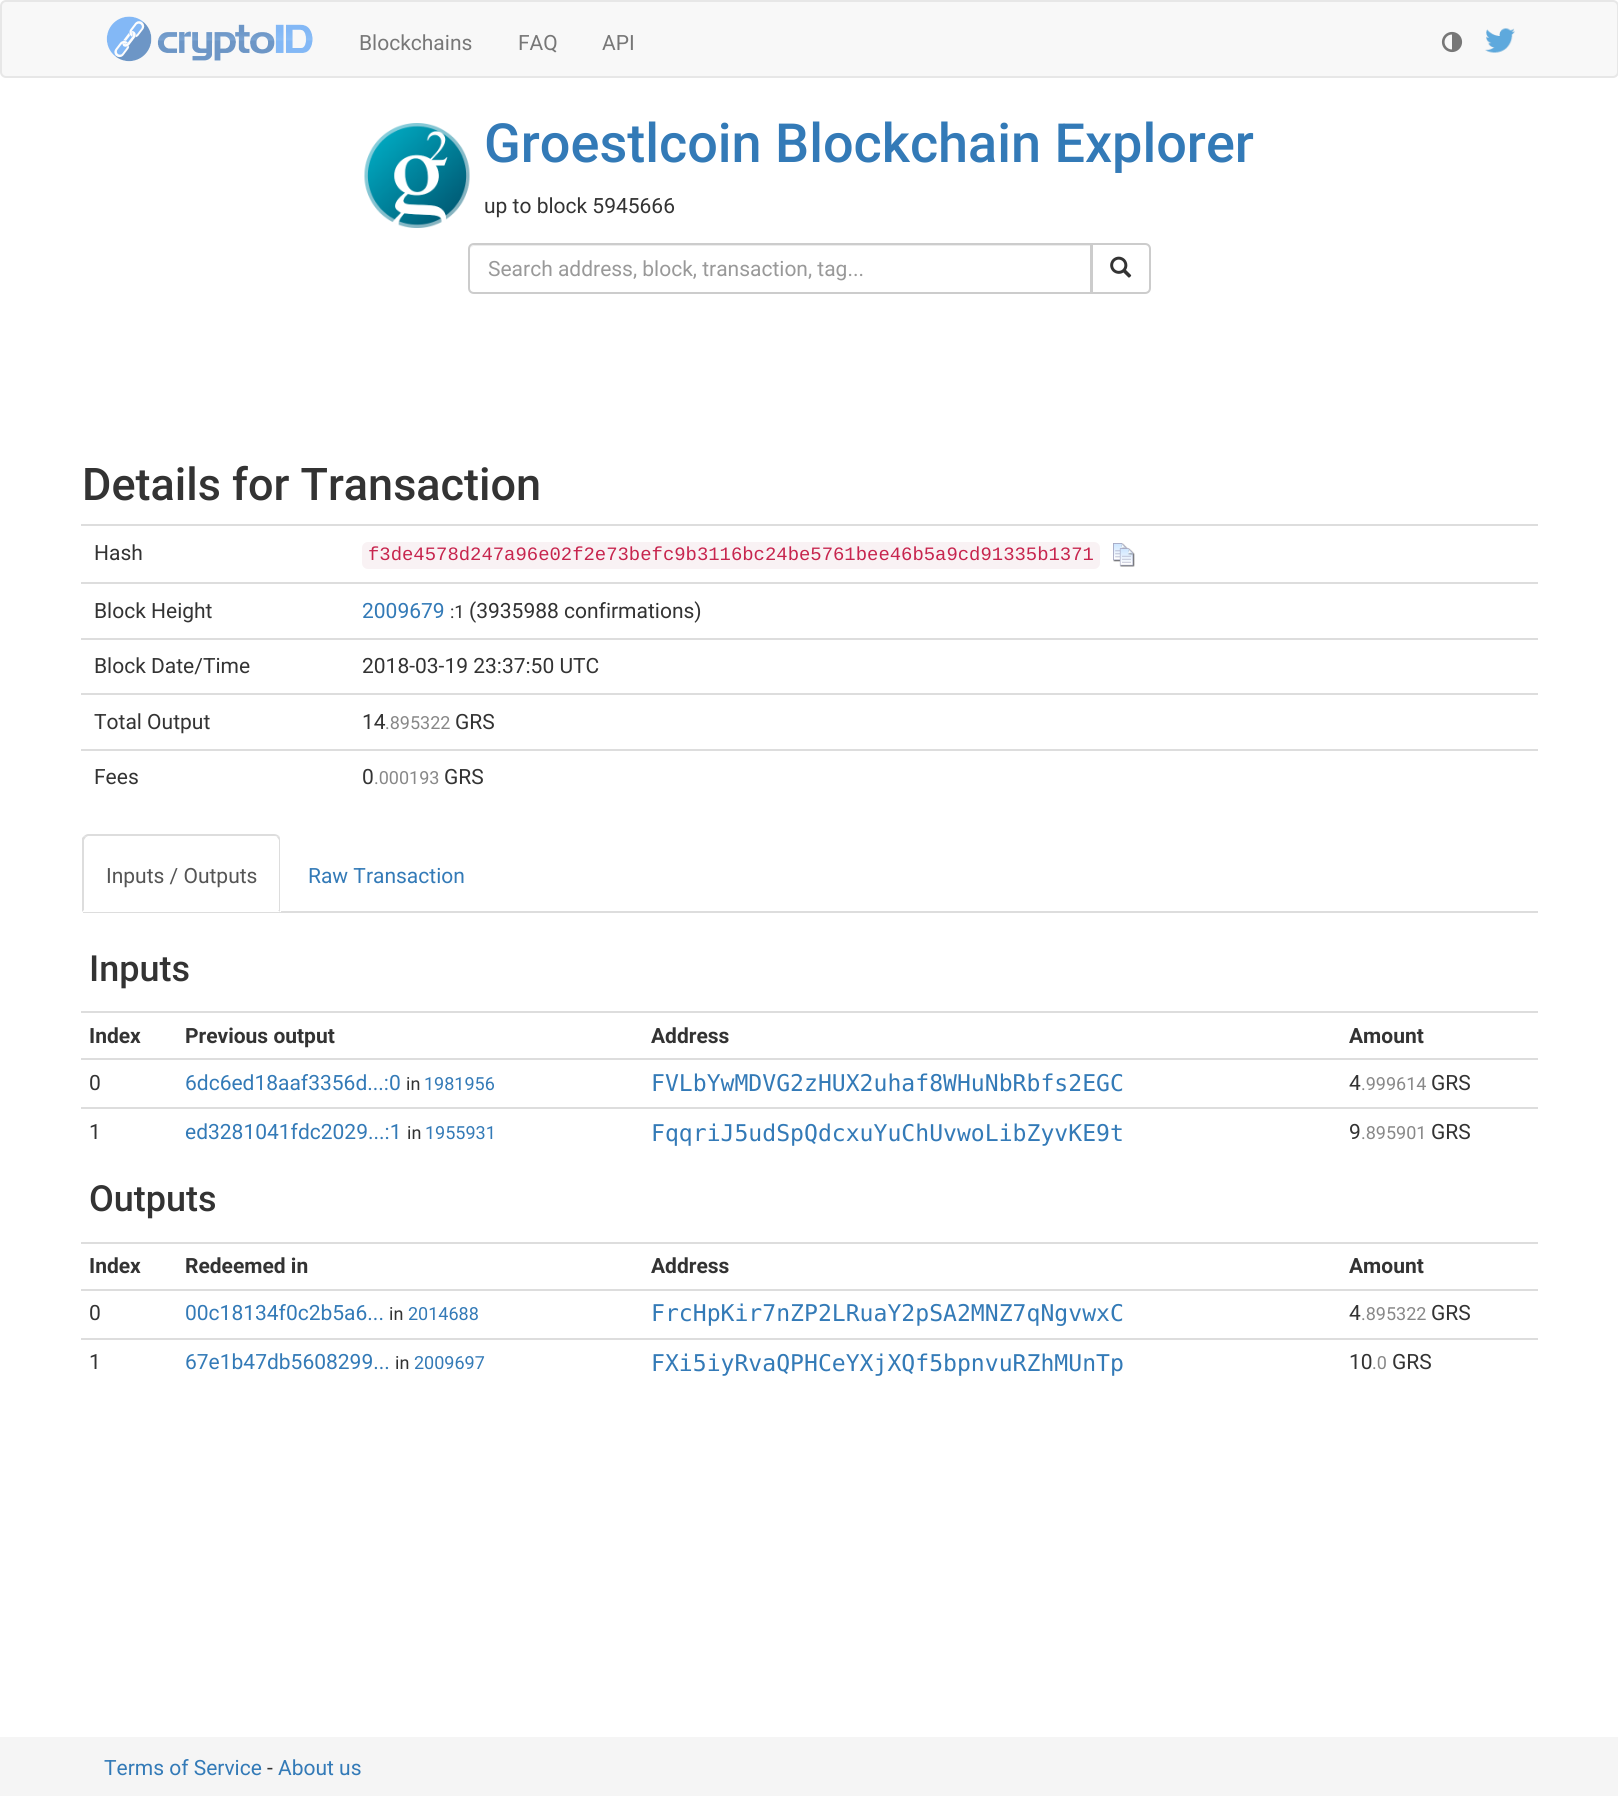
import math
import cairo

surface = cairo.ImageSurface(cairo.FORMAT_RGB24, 1618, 1796)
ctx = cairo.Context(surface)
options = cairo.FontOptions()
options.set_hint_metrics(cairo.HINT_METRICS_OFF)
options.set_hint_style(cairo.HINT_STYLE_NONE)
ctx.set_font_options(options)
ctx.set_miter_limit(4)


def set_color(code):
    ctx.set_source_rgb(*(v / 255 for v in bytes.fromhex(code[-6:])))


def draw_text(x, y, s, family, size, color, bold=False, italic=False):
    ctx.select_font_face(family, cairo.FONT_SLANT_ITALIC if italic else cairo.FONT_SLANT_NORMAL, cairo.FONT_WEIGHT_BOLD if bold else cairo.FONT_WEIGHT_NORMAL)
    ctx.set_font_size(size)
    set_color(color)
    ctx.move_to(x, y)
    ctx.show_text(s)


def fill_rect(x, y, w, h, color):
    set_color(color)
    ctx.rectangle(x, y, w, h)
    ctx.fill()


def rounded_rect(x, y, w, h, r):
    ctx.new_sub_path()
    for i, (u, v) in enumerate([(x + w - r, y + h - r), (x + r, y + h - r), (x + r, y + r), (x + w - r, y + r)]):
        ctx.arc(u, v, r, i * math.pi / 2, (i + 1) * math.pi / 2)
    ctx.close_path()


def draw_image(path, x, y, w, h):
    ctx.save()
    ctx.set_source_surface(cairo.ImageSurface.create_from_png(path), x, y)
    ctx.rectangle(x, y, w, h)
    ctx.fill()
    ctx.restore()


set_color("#ffffff")
ctx.paint()
set_color("#f8f8f8")
rounded_rect(1, 1, 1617, 76, 5)
ctx.fill_preserve()
set_color("#e7e7e7")
ctx.stroke()
draw_image("assets/img1.png", 106, 16, 207, 46)
draw_text(359, 50, "Blockchains", "Roboto", 21, "#777777")
draw_text(518, 50, "FAQ", "Roboto", 21, "#777777")
draw_text(602, 50, "API", "Roboto", 21, "#777777")
draw_image("assets/img2.png", 1441, 31, 22, 22)
draw_image("assets/img3.png", 1485, 28, 30, 25)
draw_image("assets/img4.png", 364, 123, 106, 105)
draw_text(484, 162, "Groestlcoin Blockchain Explorer", "Roboto Medium", 54, "#337ab7")
draw_text(484, 213, "up to block 5945666", "Roboto", 21, "#333333")
set_color("#ececec")
ctx.new_path()
ctx.move_to(474, 246)
ctx.line_to(1090, 246)
ctx.line_to(1090, 293)
ctx.line_to(1091, 293)
ctx.line_to(1091, 245)
ctx.line_to(475, 245)
ctx.curve_to(472, 245, 470, 247, 470, 250)
ctx.curve_to(470, 248, 472, 246, 474, 246)
ctx.close_path()
ctx.fill()
ctx.new_path()
ctx.move_to(474, 244)
ctx.line_to(1091, 244)
ctx.line_to(1091, 293)
ctx.line_to(474, 293)
ctx.curve_to(471, 293, 469, 291, 469, 288)
ctx.line_to(469, 249)
ctx.curve_to(469, 246, 471, 244, 474, 244)
ctx.close_path()
set_color("#cccccc")
ctx.stroke()
draw_text(488, 276, "Search address, block, transaction, tag...", "Roboto", 21, "#999999")
set_color("#ffffff")
ctx.new_path()
ctx.move_to(1092, 244)
ctx.line_to(1145, 244)
ctx.curve_to(1148, 244, 1150, 246, 1150, 249)
ctx.line_to(1150, 288)
ctx.curve_to(1150, 291, 1148, 293, 1145, 293)
ctx.line_to(1092, 293)
ctx.close_path()
ctx.fill_preserve()
set_color("#cccccc")
ctx.stroke()
draw_image("assets/img5.png", 1110, 256, 22, 22)
draw_text(82, 500, "Details for Transaction", "Roboto Medium", 45, "#333333")
draw_text(94, 560, "Hash", "Roboto", 21, "#333333")
fill_rect(81, 524, 1457, 2, "#dddddd")
set_color("#f9f2f4")
rounded_rect(362, 542, 738, 27, 6)
ctx.fill()
draw_text(368, 560, "f3de4578d247a96e02f2e73befc9b3116bc24be5761bee46b5a9cd91335b1371", "Liberation Mono", 18.9, "#c7254e")
draw_image("assets/img6.png", 1113, 543, 22, 24)
draw_text(94, 618, "Block Height", "Roboto", 21, "#333333")
fill_rect(81, 582, 1457, 2, "#dddddd")
draw_text(362, 618, "2009679", "Roboto", 21, "#337ab7")
draw_text(450, 618, ":1", "Roboto", 18, "#333333")
draw_text(469, 618, "(3935988 confirmations)", "Roboto", 21, "#333333")
draw_text(94, 673, "Block Date/Time", "Roboto", 21, "#333333")
fill_rect(81, 638, 1457, 2, "#dddddd")
draw_text(362, 673, "2018-03-19 23:37:50 UTC", "Roboto", 21, "#333333")
draw_text(94, 729, "Total Output", "Roboto", 21, "#333333")
fill_rect(81, 693, 1457, 2, "#dddddd")
draw_text(362, 729, "14", "Roboto", 21, "#333333")
draw_text(385, 729, ".895322", "Roboto", 18, "#888888")
draw_text(455, 729, "GRS", "Roboto", 21, "#333333")
draw_text(94, 784, "Fees", "Roboto", 21, "#333333")
fill_rect(81, 749, 1457, 2, "#dddddd")
draw_text(362, 784, "0", "Roboto", 21, "#333333")
draw_text(374, 784, ".000193", "Roboto", 18, "#888888")
draw_text(444, 784, "GRS", "Roboto", 21, "#333333")
fill_rect(83, 911, 1455, 2, "#dddddd")
set_color("#ffffff")
ctx.new_path()
ctx.move_to(89, 834)
ctx.line_to(275, 834)
ctx.curve_to(278.5, 834, 281, 836.5, 281, 840)
ctx.line_to(281, 912)
ctx.line_to(83, 912)
ctx.line_to(83, 840)
ctx.curve_to(83, 836.5, 85.5, 834, 89, 834)
ctx.close_path()
ctx.fill()
set_color("#dddddd")
ctx.new_path()
ctx.move_to(88, 834)
ctx.curve_to(87, 834, 85, 835, 84, 836)
ctx.line_to(86, 837)
ctx.line_to(88, 836)
ctx.line_to(274, 836)
ctx.curve_to(275, 836, 277, 836, 277, 837)
ctx.line_to(279, 836)
ctx.curve_to(278, 835, 276, 834, 274, 834)
ctx.close_path()
ctx.fill()
ctx.new_path()
ctx.move_to(279, 836)
ctx.curve_to(280, 837, 280, 839, 280, 840)
ctx.line_to(280, 912)
ctx.line_to(278, 910)
ctx.line_to(279, 910)
ctx.line_to(279, 840)
ctx.line_to(277, 837)
ctx.close_path()
ctx.fill()
ctx.new_path()
ctx.move_to(82, 912)
ctx.line_to(82, 838)
ctx.line_to(84, 836)
ctx.line_to(86, 837)
ctx.line_to(84, 840)
ctx.line_to(84, 910)
ctx.close_path()
ctx.fill()
draw_text(106, 883, "Inputs / Outputs", "Roboto", 21, "#555555")
draw_text(308, 883, "Raw Transaction", "Roboto", 21, "#337ab7")
draw_text(89, 981, "Inputs", "Roboto Medium", 36, "#333333")
draw_text(89, 1043, "Index", "Roboto", 21, "#333333", bold=True)
draw_text(185, 1043, "Previous output", "Roboto", 21, "#333333", bold=True)
draw_text(651, 1043, "Address", "Roboto", 21, "#333333", bold=True)
fill_rect(81, 1011, 1457, 2, "#dddddd")
draw_text(1349, 1043, "Amount", "Roboto", 21, "#333333", bold=True)
draw_text(89, 1090, "0", "Roboto", 21, "#333333")
draw_text(185, 1090, "6dc6ed18aaf3356d...:0", "Roboto", 21, "#337ab7")
draw_text(406, 1090, "in", "Roboto", 18, "#333333")
draw_text(424, 1090, "1981956", "Roboto", 18, "#337ab7")
draw_text(651, 1091, "FVLbYwMDVG2zHUX2uhaf8WHuNbRbfs2EGC", "DejaVu Sans Mono", 23.1, "#337ab7")
fill_rect(81, 1058, 1457, 2, "#dddddd")
draw_text(1349, 1090, "4", "Roboto", 21, "#333333")
draw_text(1361, 1090, ".999614", "Roboto", 18, "#888888")
draw_text(1431, 1090, "GRS", "Roboto", 21, "#333333")
draw_text(89, 1139, "1", "Roboto", 21, "#333333")
draw_text(185, 1139, "ed3281041fdc2029...:1", "Roboto", 21, "#337ab7")
draw_text(407, 1139, "in", "Roboto", 18, "#333333")
draw_text(425, 1139, "1955931", "Roboto", 18, "#337ab7")
draw_text(651, 1141, "FqqriJ5udSpQdcxuYuChUvwoLibZyvKE9t", "DejaVu Sans Mono", 23.1, "#337ab7")
fill_rect(81, 1107, 1457, 2, "#dddddd")
draw_text(1349, 1139, "9", "Roboto", 21, "#333333")
draw_text(1361, 1139, ".895901", "Roboto", 18, "#888888")
draw_text(1431, 1139, "GRS", "Roboto", 21, "#333333")
draw_text(89, 1211, "Outputs", "Roboto Medium", 36, "#333333")
draw_text(89, 1273, "Index", "Roboto", 21, "#333333", bold=True)
draw_text(185, 1273, "Redeemed in", "Roboto", 21, "#333333", bold=True)
draw_text(651, 1273, "Address", "Roboto", 21, "#333333", bold=True)
fill_rect(81, 1242, 1457, 2, "#dddddd")
draw_text(1349, 1273, "Amount", "Roboto", 21, "#333333", bold=True)
draw_text(89, 1320, "0", "Roboto", 21, "#333333")
draw_text(185, 1320, "00c18134f0c2b5a6...", "Roboto", 21, "#337ab7")
draw_text(389, 1320, "in", "Roboto", 18, "#333333")
draw_text(408, 1320, "2014688", "Roboto", 18, "#337ab7")
draw_text(651, 1321, "FrcHpKir7nZP2LRuaY2pSA2MNZ7qNgvwxC", "DejaVu Sans Mono", 23.1, "#337ab7")
fill_rect(81, 1289, 1457, 2, "#dddddd")
draw_text(1349, 1320, "4", "Roboto", 21, "#333333")
draw_text(1361, 1320, ".895322", "Roboto", 18, "#888888")
draw_text(1431, 1320, "GRS", "Roboto", 21, "#333333")
draw_text(89, 1369, "1", "Roboto", 21, "#333333")
draw_text(185, 1369, "67e1b47db5608299...", "Roboto", 21, "#337ab7")
draw_text(395, 1369, "in", "Roboto", 18, "#333333")
draw_text(414, 1369, "2009697", "Roboto", 18, "#337ab7")
draw_text(651, 1371, "FXi5iyRvaQPHCeYXjXQf5bpnvuRZhMUnTp", "DejaVu Sans Mono", 23.1, "#337ab7")
fill_rect(81, 1338, 1457, 2, "#dddddd")
draw_text(1349, 1369, "10", "Roboto", 21, "#333333")
draw_text(1372, 1369, ".0", "Roboto", 18, "#888888")
draw_text(1392, 1369, "GRS", "Roboto", 21, "#333333")
fill_rect(0, 1737, 1618, 59, "#f5f5f5")
draw_text(104, 1775, "Terms of Service", "Roboto", 21, "#337ab7")
draw_text(267, 1775, "-", "Roboto", 21, "#333333")
draw_text(278, 1775, "About us", "Roboto", 21, "#337ab7")
surface.write_to_png("output.png")
